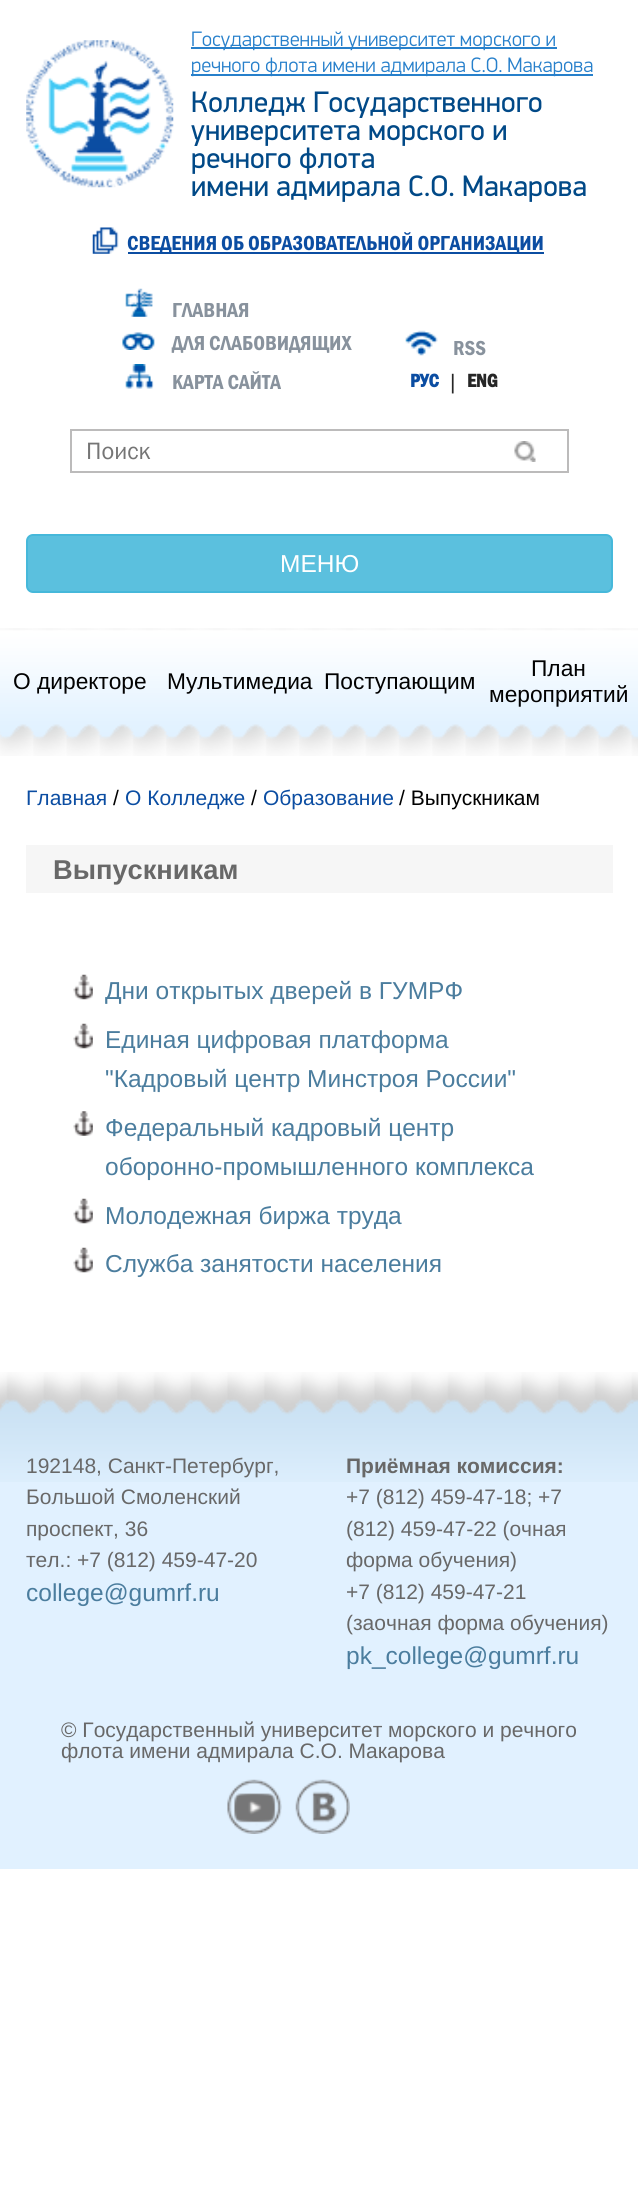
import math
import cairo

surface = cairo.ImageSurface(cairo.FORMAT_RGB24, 638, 2187)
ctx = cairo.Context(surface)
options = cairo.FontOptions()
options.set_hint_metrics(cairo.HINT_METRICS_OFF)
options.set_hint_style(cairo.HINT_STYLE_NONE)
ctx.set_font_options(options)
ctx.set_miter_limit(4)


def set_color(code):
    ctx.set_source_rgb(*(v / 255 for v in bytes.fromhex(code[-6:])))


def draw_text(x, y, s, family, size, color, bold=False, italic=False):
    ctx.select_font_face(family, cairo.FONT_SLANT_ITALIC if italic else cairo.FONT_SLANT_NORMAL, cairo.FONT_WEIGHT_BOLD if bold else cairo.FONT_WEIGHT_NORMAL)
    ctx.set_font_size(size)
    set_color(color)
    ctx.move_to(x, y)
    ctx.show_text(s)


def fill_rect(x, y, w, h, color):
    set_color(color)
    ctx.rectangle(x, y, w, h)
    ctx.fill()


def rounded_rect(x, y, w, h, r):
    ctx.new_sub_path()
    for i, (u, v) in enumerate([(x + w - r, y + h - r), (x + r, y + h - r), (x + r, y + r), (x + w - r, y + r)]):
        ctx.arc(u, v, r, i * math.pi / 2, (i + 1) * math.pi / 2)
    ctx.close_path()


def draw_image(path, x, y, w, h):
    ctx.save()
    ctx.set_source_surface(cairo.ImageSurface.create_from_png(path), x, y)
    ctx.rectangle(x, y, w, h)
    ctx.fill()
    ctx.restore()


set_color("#ffffff")
ctx.paint()
draw_image("assets/img1.png", 26, 40, 148, 148)
fill_rect(191, 47, 366, 2, "#2780cb")
draw_text(191, 46, "Государственный университет морского и", "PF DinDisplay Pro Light", 21, "#2780cb")
fill_rect(191, 74, 402, 2, "#2780cb")
draw_text(191, 72, "речного флота имени адмирала С.О. Макарова", "PF DinDisplay Pro Light", 21, "#2780cb")
draw_text(191, 112, "Колледж Государственного", "PF DinDisplay Pro", 29.75, "#014987")
draw_text(191, 140, "университета морского и", "PF DinDisplay Pro", 29.75, "#014987")
draw_text(191, 168, "речного флота", "PF DinDisplay Pro", 29.75, "#014987")
draw_text(191, 196, "имени адмирала С.О. Макарова", "PF DinDisplay Pro", 29.75, "#014987")
draw_image("assets/img2.png", 92, 227, 27, 27)
fill_rect(128, 252, 416, 2, "#0b4da2")
draw_text(127, 250, "СВЕДЕНИЯ ОБ ОБРАЗОВАТЕЛЬНОЙ ОРГАНИЗАЦИИ", "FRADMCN", 21, "#0b4da2")
draw_image("assets/img3.png", 125, 288, 28, 29)
draw_text(172, 317, "ГЛАВНАЯ", "FRADMCN", 21, "#88929d")
draw_image("assets/img4.png", 122, 332, 33, 18)
draw_text(172, 350, "ДЛЯ СЛАБОВИДЯЩИХ", "FRADMCN", 21, "#88929d")
draw_image("assets/img5.png", 125, 364, 29, 25)
draw_text(172, 389, "КАРТА САЙТА", "FRADMCN", 21, "#88929d")
draw_image("assets/img6.png", 405, 330, 33, 26)
draw_text(453, 355, "RSS", "FRADMCN", 21, "#88929d")
draw_text(410, 387, "РУС", "FRADMCN", 19, "#0b4da2", bold=True)
draw_text(450, 389, "|", "Liberation Sans", 21, "#262626")
draw_text(467, 387, "ENG", "FRADMCN", 19, "#262626", bold=True)
ctx.rectangle(71, 430, 418, 42)
set_color("#bcbbbb")
ctx.stroke()
draw_text(86, 459, "Поиск", "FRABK", 24.5, "#757575")
fill_rect(488, 431, 2, 40, "#ffffff")
draw_image("assets/img7.png", 514, 441, 22, 21)
fill_rect(490, 429, 79, 2, "#bcbbbb")
fill_rect(567, 429, 2, 44, "#bcbbbb")
fill_rect(490, 471, 79, 2, "#bcbbbb")
set_color("#5bc0de")
rounded_rect(27, 535, 585, 57, 6)
ctx.fill_preserve()
set_color("#46b8da")
ctx.stroke()
draw_text(280, 572, "МЕНЮ", "Liberation Sans", 24.5, "#ffffff")
draw_image("assets/img8.png", 0, 628, 638, 128)
draw_text(13, 689, "О директоре", "Liberation Sans", 22.75, "#010101")
draw_text(167, 689, "Мультимедиа", "Liberation Sans", 22.75, "#010101")
draw_text(324, 689, "Поступающим", "Liberation Sans", 22.75, "#010101")
draw_text(531, 676, "План", "Liberation Sans", 22.75, "#010101")
draw_text(489, 702, "мероприятий", "Liberation Sans", 22.75, "#010101")
draw_text(26, 805, "Главная", "Liberation Sans", 21, "#0b4da2")
draw_text(113, 805, "/", "Liberation Sans", 21, "#010101")
draw_text(125, 805, "О Колледже", "Liberation Sans", 21, "#0b4da2")
draw_text(251, 805, "/", "Liberation Sans", 21, "#010101")
draw_text(263, 805, "Образование", "Liberation Sans", 21, "#0b4da2")
draw_text(399, 805, "/ Выпускникам", "Liberation Sans", 21, "#010101")
fill_rect(26, 845, 587, 48, "#f6f6f6")
draw_text(53, 879, "Выпускникам", "Liberation Sans", 27.25, "#686868", bold=True)
draw_image("assets/img9.png", 73, 974, 20, 26)
draw_text(105, 999, "Дни открытых дверей в ГУМРФ", "Liberation Sans", 24.5, "#4b7d9e")
draw_image("assets/img9.png", 73, 1023, 20, 26)
draw_text(105, 1048, "Единая цифровая платформа", "Liberation Sans", 24.5, "#4b7d9e")
draw_text(105, 1087, "\"Кадровый центр Минстроя России\"", "Liberation Sans", 24.5, "#4b7d9e")
draw_image("assets/img10.png", 73, 1111, 20, 25)
draw_text(105, 1136, "Федеральный кадровый центр", "Liberation Sans", 24.5, "#4b7d9e")
draw_text(105, 1175, "оборонно-промышленного комплекса", "Liberation Sans", 24.5, "#4b7d9e")
draw_image("assets/img9.png", 73, 1198, 20, 26)
draw_text(105, 1224, "Молодежная биржа труда", "Liberation Sans", 24.5, "#4b7d9e")
draw_image("assets/img9.png", 73, 1247, 20, 26)
draw_text(105, 1272, "Служба занятости населения", "Liberation Sans", 24.5, "#4b7d9e")
fill_rect(0, 1482, 638, 387, "#e1f1ff")
draw_image("assets/img11.png", 0, 1372, 638, 110)
draw_text(26, 1473, "192148, Санкт-Петербург,", "Liberation Sans", 21, "#686868")
draw_text(26, 1504, "Большой Смоленский", "Liberation Sans", 21, "#686868")
draw_text(26, 1536, "проспект, 36", "Liberation Sans", 21, "#686868")
draw_text(26, 1567, "тел.: +7 (812) 459-47-20", "Liberation Sans", 21, "#686868")
draw_text(26, 1601, "college@gumrf.ru", "Liberation Sans", 24.5, "#4b7d9e")
draw_text(346, 1473, "Приёмная комиссия:", "Liberation Sans", 21, "#686868", bold=True)
draw_text(346, 1504, "+7 (812) 459-47-18; +7", "Liberation Sans", 21, "#686868")
draw_text(346, 1536, "(812) 459-47-22 (очная", "Liberation Sans", 21, "#686868")
draw_text(346, 1567, "форма обучения)", "Liberation Sans", 21, "#686868")
draw_text(346, 1599, "+7 (812) 459-47-21", "Liberation Sans", 21, "#686868")
draw_text(346, 1630, "(заочная форма обучения)", "Liberation Sans", 21, "#686868")
draw_text(346, 1664, "pk_college@gumrf.ru", "Liberation Sans", 24.5, "#4b7d9e")
draw_text(61, 1737, "© Государственный университет морского и речного", "Liberation Sans", 21, "#686868")
draw_text(61, 1758, "флота имени адмирала С.О. Макарова", "Liberation Sans", 21, "#686868")
draw_image("assets/img12.png", 227, 1779, 55, 55)
draw_image("assets/img13.png", 295, 1779, 55, 55)
surface.write_to_png("output.png")
